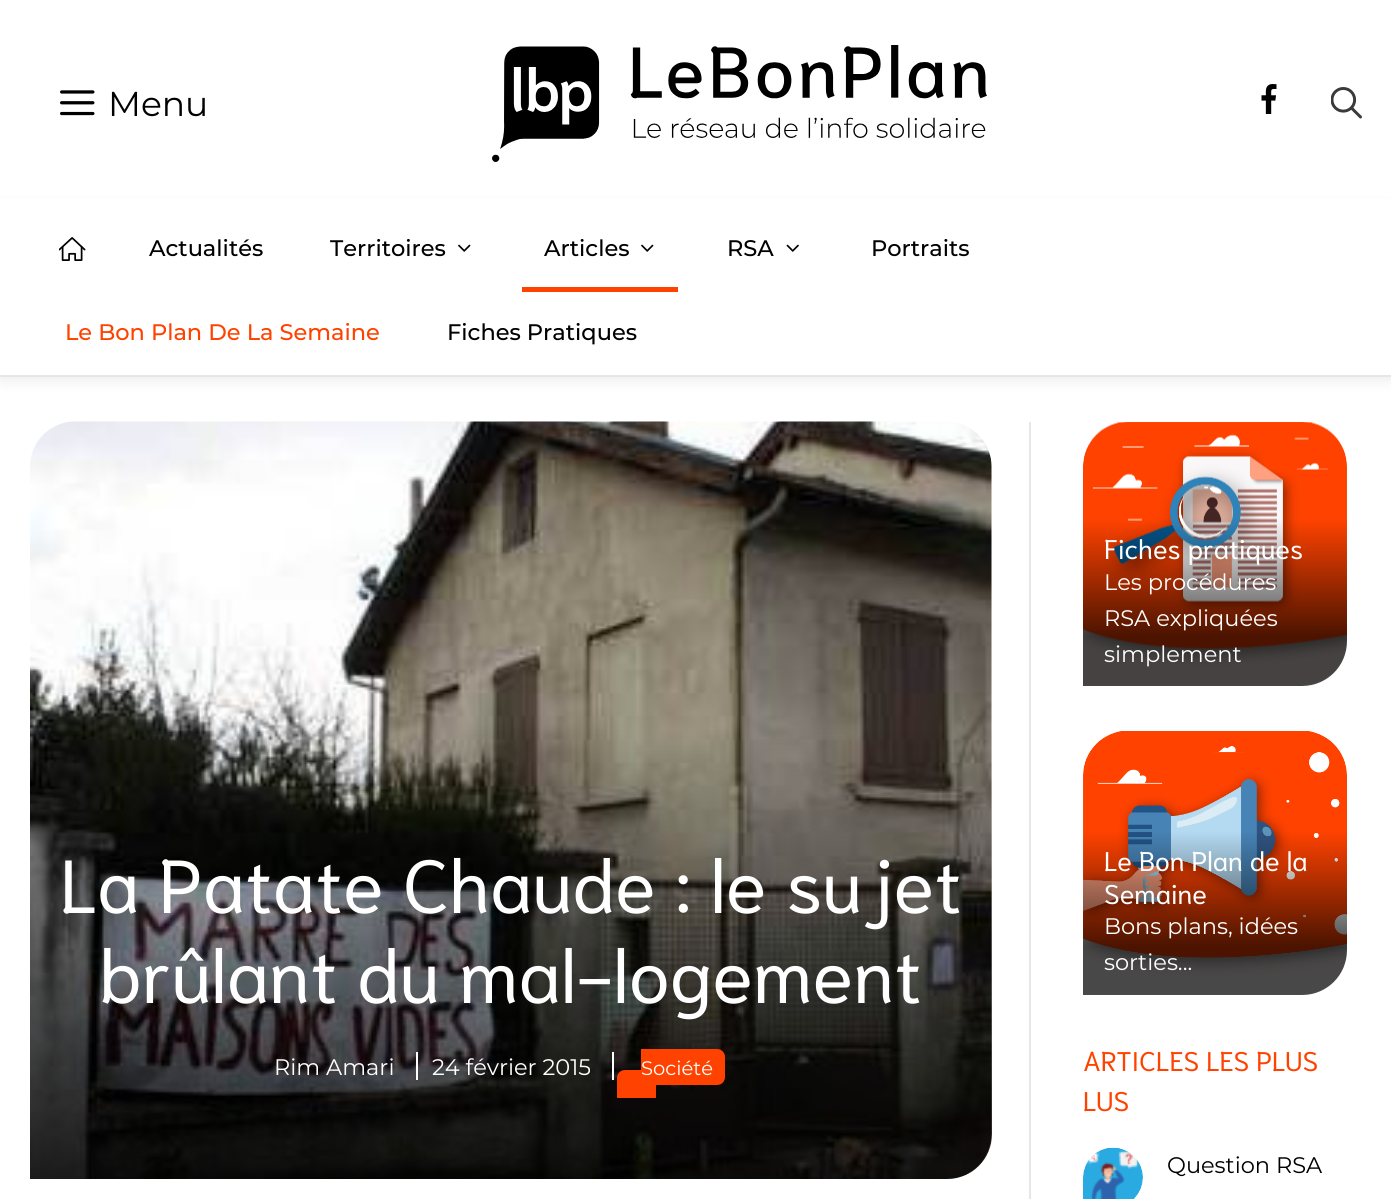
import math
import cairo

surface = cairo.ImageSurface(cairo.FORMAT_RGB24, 1391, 1199)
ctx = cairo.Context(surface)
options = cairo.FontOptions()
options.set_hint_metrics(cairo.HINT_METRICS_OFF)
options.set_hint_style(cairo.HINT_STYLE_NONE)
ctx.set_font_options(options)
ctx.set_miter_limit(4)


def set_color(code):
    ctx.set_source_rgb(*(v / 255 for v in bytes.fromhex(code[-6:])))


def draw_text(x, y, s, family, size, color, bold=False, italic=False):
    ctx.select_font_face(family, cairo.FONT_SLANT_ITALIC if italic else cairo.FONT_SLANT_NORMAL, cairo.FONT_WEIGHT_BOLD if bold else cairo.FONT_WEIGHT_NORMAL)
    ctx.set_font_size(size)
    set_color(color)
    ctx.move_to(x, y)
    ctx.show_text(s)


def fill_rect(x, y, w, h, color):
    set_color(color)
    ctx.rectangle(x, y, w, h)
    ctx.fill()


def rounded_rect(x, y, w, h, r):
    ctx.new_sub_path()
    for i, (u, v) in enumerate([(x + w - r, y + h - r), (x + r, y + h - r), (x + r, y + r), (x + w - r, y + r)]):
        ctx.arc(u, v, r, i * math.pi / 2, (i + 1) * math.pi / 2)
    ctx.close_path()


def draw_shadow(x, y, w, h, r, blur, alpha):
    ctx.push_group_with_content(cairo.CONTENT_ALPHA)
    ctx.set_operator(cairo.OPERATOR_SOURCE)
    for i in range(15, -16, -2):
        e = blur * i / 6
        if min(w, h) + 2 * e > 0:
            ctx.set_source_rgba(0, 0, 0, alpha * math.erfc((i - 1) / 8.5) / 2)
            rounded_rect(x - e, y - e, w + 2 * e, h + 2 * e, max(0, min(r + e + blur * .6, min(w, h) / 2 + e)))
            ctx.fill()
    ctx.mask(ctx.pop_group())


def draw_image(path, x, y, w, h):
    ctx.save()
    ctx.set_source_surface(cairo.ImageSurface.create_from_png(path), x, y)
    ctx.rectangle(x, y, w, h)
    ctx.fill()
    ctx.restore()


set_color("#ffffff")
ctx.paint()
ctx.save()
ctx.set_fill_rule(cairo.FILL_RULE_EVEN_ODD)
ctx.new_path()
ctx.move_to(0, 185)
ctx.line_to(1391, 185)
ctx.line_to(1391, 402)
ctx.line_to(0, 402)
ctx.close_path()
ctx.move_to(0, 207)
ctx.line_to(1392, 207)
ctx.line_to(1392, 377)
ctx.line_to(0, 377)
ctx.close_path()
ctx.clip()
set_color("#000000")
draw_shadow(0, 209, 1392, 169, 0, 7.5, 0.1)
ctx.restore()
fill_rect(0, 199, 1391, 8, "#ffffff")
draw_image("assets/img1.png", 60, 90, 35, 26)
draw_text(108, 116, "Menu", "Montserrat", 34.5, "#000000")
draw_image("assets/img2.png", 492, 45, 495, 117)
draw_image("assets/img3.png", 1261, 84, 16, 30)
draw_image("assets/img4.png", 1331, 87, 31, 32)
ctx.set_source_rgba(0, 0, 0, 0.1)
ctx.rectangle(0, 375, 1391, 2)
ctx.fill()
draw_image("assets/img5.png", 59, 237, 27, 24)
draw_text(149, 256, "Actualités", "Montserrat Medium", 22.5, "#000000")
draw_text(330, 256, "Territoires", "Montserrat Medium", 22.5, "#000000")
draw_image("assets/img6.png", 458, 244, 13, 8)
draw_text(544, 256, "Articles", "Montserrat Medium", 22.5, "#000000")
draw_image("assets/img6.png", 641, 244, 13, 8)
fill_rect(522, 287, 156, 5, "#ff4200")
draw_text(727, 256, "RSA", "Montserrat Medium", 22.5, "#000000")
draw_image("assets/img7.png", 786, 244, 13, 8)
draw_text(871, 256, "Portraits", "Montserrat Medium", 22.5, "#000000")
draw_text(65, 340, "Le Bon Plan De La Semaine", "Montserrat Medium", 22.5, "#ff4200")
draw_text(447, 340, "Fiches Pratiques", "Montserrat Medium", 22.5, "#000000")
draw_image("assets/img8.png", 30, 421, 962, 758)
gradient = cairo.LinearGradient(511, 1179, 511, 421)
gradient.add_color_stop_rgba(0, 0, 0, 0, 0.8)
gradient.add_color_stop_rgba(0.6, 0, 0, 0, 0)
ctx.set_source(gradient)
ctx.new_path()
ctx.move_to(75, 422)
ctx.line_to(947, 422)
ctx.curve_to(972, 422, 992, 442, 992, 467)
ctx.line_to(992, 1134)
ctx.curve_to(992, 1159, 972, 1179, 947, 1179)
ctx.line_to(30, 1179)
ctx.line_to(30, 467)
ctx.curve_to(30, 442, 50, 422, 75, 422)
ctx.close_path()
ctx.fill()
draw_text(60, 913, "La Patate Chaude : le sujet", "Niramit", 75, "#ffffff")
draw_text(99, 1003, "brûlant du mal-logement", "Niramit", 75, "#ffffff")
draw_text(274, 1075, "Rim Amari", "Montserrat", 22.5, "#ffffff")
fill_rect(416, 1052, 2, 28, "#ffffff")
draw_text(432, 1075, "24 février 2015", "Montserrat", 22.5, "#ffffff")
fill_rect(612, 1052, 2, 28, "#ffffff")
set_color("#ff4200")
ctx.new_path()
ctx.move_to(625, 1070)
ctx.line_to(656, 1070)
ctx.line_to(656, 1098)
ctx.line_to(617, 1098)
ctx.line_to(617, 1078)
ctx.curve_to(617, 1073.5, 620.5, 1070, 625, 1070)
ctx.close_path()
ctx.fill()
ctx.new_path()
ctx.move_to(641, 1049)
ctx.line_to(717, 1049)
ctx.curve_to(721.5, 1049, 725, 1052.5, 725, 1057)
ctx.line_to(725, 1077)
ctx.curve_to(725, 1081.5, 721.5, 1085, 717, 1085)
ctx.line_to(641, 1085)
ctx.close_path()
ctx.fill()
draw_text(641, 1075, "Société", "Montserrat", 19.5, "#ffffff")
set_color("#ff4200")
ctx.new_path()
ctx.move_to(628.5, 1075.5)
ctx.line_to(655.5, 1075.5)
ctx.line_to(640.5, 1083)
ctx.close_path()
ctx.fill()
fill_rect(1029, 422, 2, 777, "#e6e6e6")
draw_image("assets/img9.png", 1083, 422, 264, 264)
gradient = cairo.LinearGradient(1215, 686, 1215, 519)
gradient.add_color_stop_rgba(0.3, 0, 0, 0, 0.7)
gradient.add_color_stop_rgba(1, 0, 0, 0, 0)
ctx.set_source(gradient)
ctx.new_path()
ctx.move_to(1083, 519)
ctx.line_to(1347, 519)
ctx.line_to(1347, 641)
ctx.curve_to(1347, 666, 1327, 686, 1302, 686)
ctx.line_to(1083, 686)
ctx.close_path()
ctx.fill()
draw_text(1104, 559, "Fiches pratiques", "Niramit", 27, "#ffffff")
draw_text(1104, 590, "Les procédures", "Montserrat", 22.5, "#ffffff")
draw_text(1104, 626, "RSA expliquées", "Montserrat", 22.5, "#ffffff")
draw_text(1104, 662, "simplement", "Montserrat", 22.5, "#ffffff")
draw_image("assets/img10.png", 1083, 731, 264, 263)
gradient = cairo.LinearGradient(1215, 995, 1215, 831)
gradient.add_color_stop_rgba(0.3, 0, 0, 0, 0.7)
gradient.add_color_stop_rgba(1, 0, 0, 0, 0)
ctx.set_source(gradient)
ctx.new_path()
ctx.move_to(1083, 831)
ctx.line_to(1347, 831)
ctx.line_to(1347, 950)
ctx.curve_to(1347, 975, 1327, 995, 1302, 995)
ctx.line_to(1083, 995)
ctx.close_path()
ctx.fill()
draw_text(1104, 871, "Le Bon Plan de la", "Niramit", 27, "#ffffff")
draw_text(1104, 904, "Semaine", "Niramit", 27, "#ffffff")
draw_text(1104, 934, "Bons plans, idées", "Montserrat", 22.5, "#ffffff")
draw_text(1104, 970, "sorties...", "Montserrat", 22.5, "#ffffff")
draw_text(1083, 1071, "ARTICLES LES PLUS", "Niramit", 27, "#ff4200")
draw_text(1083, 1111, "LUS", "Niramit", 27, "#ff4200")
draw_image("assets/img11.png", 1083, 1147, 60, 52)
draw_text(1167, 1173, "Question RSA", "Montserrat", 22.5, "#000000")
surface.write_to_png("output.png")
